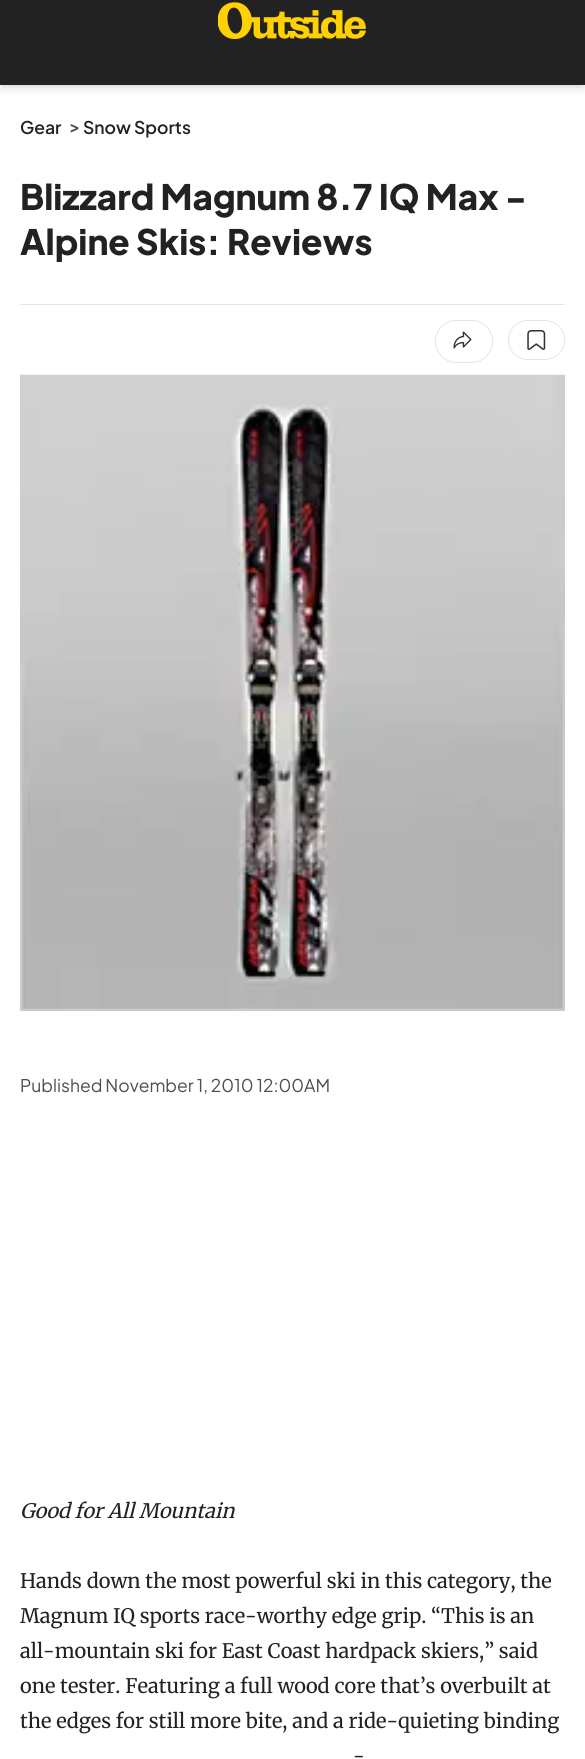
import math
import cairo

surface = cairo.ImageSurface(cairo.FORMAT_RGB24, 585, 1759)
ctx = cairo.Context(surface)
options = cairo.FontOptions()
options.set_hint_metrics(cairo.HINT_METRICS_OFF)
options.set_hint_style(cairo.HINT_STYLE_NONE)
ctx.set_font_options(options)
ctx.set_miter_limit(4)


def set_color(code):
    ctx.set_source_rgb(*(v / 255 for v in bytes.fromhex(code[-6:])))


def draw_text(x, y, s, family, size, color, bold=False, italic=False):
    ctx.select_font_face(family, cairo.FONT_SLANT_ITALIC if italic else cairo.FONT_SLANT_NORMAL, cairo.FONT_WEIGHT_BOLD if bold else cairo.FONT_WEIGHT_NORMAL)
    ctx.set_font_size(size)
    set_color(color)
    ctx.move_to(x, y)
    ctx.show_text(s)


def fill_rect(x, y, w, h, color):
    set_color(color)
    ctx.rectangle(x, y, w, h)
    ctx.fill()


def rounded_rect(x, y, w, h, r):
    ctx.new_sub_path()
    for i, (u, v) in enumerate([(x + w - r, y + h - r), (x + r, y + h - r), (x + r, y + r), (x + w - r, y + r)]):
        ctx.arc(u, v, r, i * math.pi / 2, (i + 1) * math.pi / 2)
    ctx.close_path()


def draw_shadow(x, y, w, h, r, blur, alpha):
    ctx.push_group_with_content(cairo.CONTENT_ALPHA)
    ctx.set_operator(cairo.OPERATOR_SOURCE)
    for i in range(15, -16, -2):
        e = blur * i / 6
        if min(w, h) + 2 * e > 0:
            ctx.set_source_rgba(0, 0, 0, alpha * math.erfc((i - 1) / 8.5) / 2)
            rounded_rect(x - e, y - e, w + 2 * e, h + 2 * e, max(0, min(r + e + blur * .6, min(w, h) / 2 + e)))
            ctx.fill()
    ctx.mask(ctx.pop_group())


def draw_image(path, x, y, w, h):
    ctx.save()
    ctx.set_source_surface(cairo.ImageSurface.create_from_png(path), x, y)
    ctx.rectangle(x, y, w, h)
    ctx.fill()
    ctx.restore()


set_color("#ffffff")
ctx.paint()
set_color("#000000")
draw_shadow(3, 5, 580, 80, 0, 2.5, 0.1)
draw_shadow(1, 6, 583, 83, 0, 4, 0.1)
fill_rect(0, 0, 585, 85, "#222222")
draw_image("assets/img1.png", 218, 2, 148, 37)
draw_text(20, 134, "Gear", "Plus Jakarta Sans SemiBold", 17.5, "#222222")
draw_text(69, 133, ">", "Plus Jakarta Sans SemiBold", 17.5, "#4e4e4e")
draw_text(83, 134, "Snow Sports", "Plus Jakarta Sans SemiBold", 17.5, "#222222")
draw_text(20, 210, "Blizzard Magnum 8.7 IQ Max -", "Plus Jakarta Sans ExtraBold", 35, "#222222")
draw_text(20, 255, "Alpine Skis: Reviews", "Plus Jakarta Sans ExtraBold", 35, "#222222")
fill_rect(20, 304, 545, 1, "#e5e5e5")
rounded_rect(435.5, 320.5, 57, 42, 21)
ctx.set_line_width(1)
ctx.stroke()
draw_image("assets/img2.png", 453, 331, 19, 18)
rounded_rect(508.5, 320.5, 56, 39, 19.5)
ctx.stroke()
draw_image("assets/img3.png", 527, 330, 19, 20)
draw_image("assets/img4.png", 20, 374, 545, 637)
draw_text(20, 1092, "Published November 1, 2010 12:00AM", "Plus Jakarta Sans", 17.5, "#4e4e4e")
draw_text(20, 1518, "Good for All Mountain", "Merriweather", 20, "#222222", italic=True)
draw_text(20, 1588, "Hands down the most powerful ski in this category, the", "Merriweather", 20, "#222222")
draw_text(20, 1623, "Magnum IQ sports race-worthy edge grip. “This is an", "Merriweather", 20, "#222222")
draw_text(20, 1658, "all-mountain ski for East Coast hardpack skiers,” said", "Merriweather", 20, "#222222")
draw_text(20, 1693, "one tester. Featuring a full wood core that’s overbuilt at", "Merriweather", 20, "#222222")
draw_text(20, 1728, "the edges for still more bite, and a ride-quieting binding", "Merriweather", 20, "#222222")
draw_text(353, 1763, "-", "Merriweather", 20, "#222222")
surface.write_to_png("output.png")
